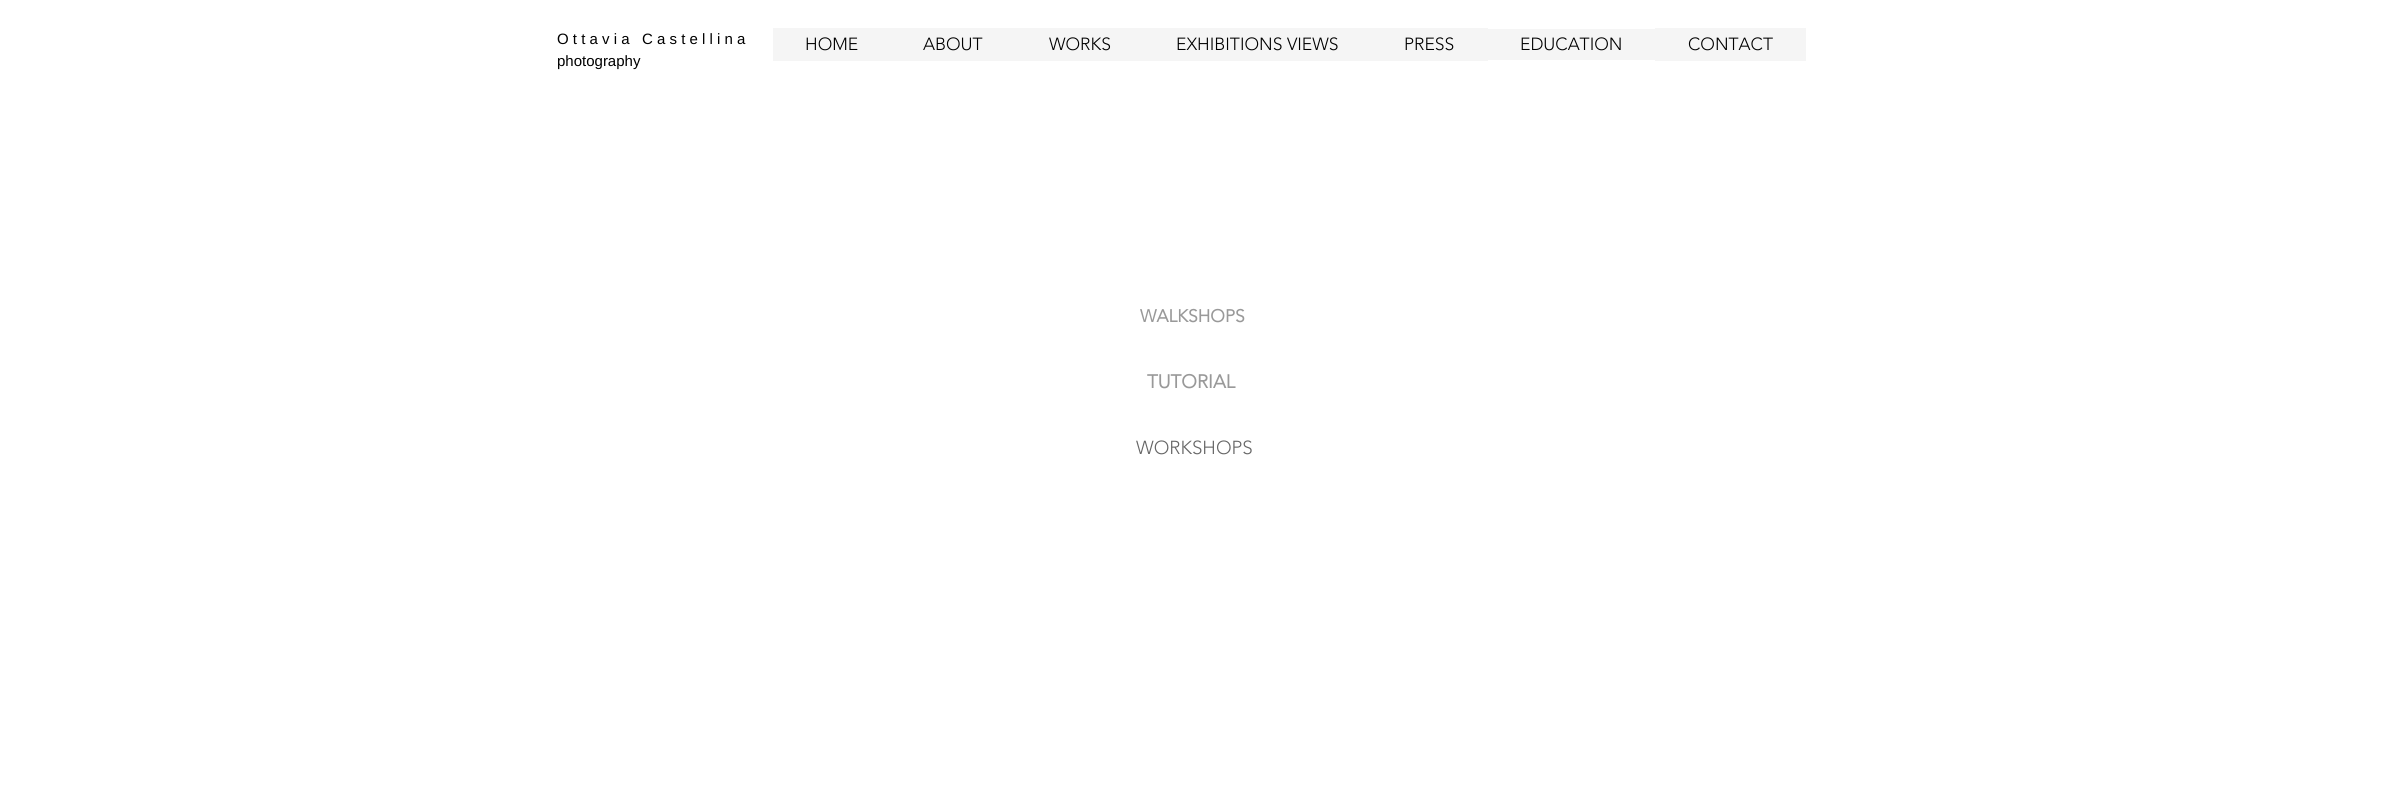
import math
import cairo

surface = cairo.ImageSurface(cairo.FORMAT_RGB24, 2383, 800)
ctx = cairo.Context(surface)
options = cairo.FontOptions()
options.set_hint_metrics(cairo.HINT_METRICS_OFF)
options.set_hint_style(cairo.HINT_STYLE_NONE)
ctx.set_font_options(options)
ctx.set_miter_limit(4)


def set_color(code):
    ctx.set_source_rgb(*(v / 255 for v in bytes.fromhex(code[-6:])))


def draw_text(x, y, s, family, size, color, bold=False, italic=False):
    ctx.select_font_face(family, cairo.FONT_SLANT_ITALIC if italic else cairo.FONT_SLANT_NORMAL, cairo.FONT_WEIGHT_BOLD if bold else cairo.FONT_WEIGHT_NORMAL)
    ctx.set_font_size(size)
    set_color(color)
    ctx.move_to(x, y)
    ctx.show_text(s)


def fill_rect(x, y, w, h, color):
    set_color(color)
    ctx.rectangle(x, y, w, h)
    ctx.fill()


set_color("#ffffff")
ctx.paint()
draw_text(557, 44, "O t t a v i a   C a s t e l l i n a", "Liberation Sans", 15, "#000000")
draw_text(557, 66, "photography", "Liberation Sans", 15, "#000000")
fill_rect(773, 28, 1033, 33, "#f5f5f5")
draw_text(805, 50, "HOME", "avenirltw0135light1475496 Light", 17.5, "#000000")
draw_text(923, 50, "ABOUT", "avenirltw0135light1475496 Light", 17.5, "#000000")
draw_text(1049, 50, "WORKS", "avenirltw0135light1475496 Light", 17.5, "#000000")
draw_text(1176, 50, "EXHIBITIONS VIEWS", "avenirltw0135light1475496 Light", 17.5, "#000000")
draw_text(1404, 50, "PRESS", "avenirltw0135light1475496 Light", 17.5, "#000000")
fill_rect(1488, 28, 167, 1, "#ffffff")
fill_rect(1488, 60, 167, 1, "#ffffff")
draw_text(1520, 50, "EDUCATION", "avenirltw0135light1475496 Light", 17.5, "#000000")
draw_text(1688, 50, "CONTACT", "avenirltw0135light1475496 Light", 17.5, "#000000")
draw_text(1140, 322, "WALKSHOPS", "avenirltw0135light1475496", 17.5, "#999999", bold=True)
draw_text(1147, 388, "TUTORIAL", "avenirltw0135light1475496", 18.75, "#999999", bold=True)
draw_text(1136, 454, "WORKSHOPS", "avenirltw0135light1475496 Light", 18.75, "#666666")
surface.write_to_png("output.png")
